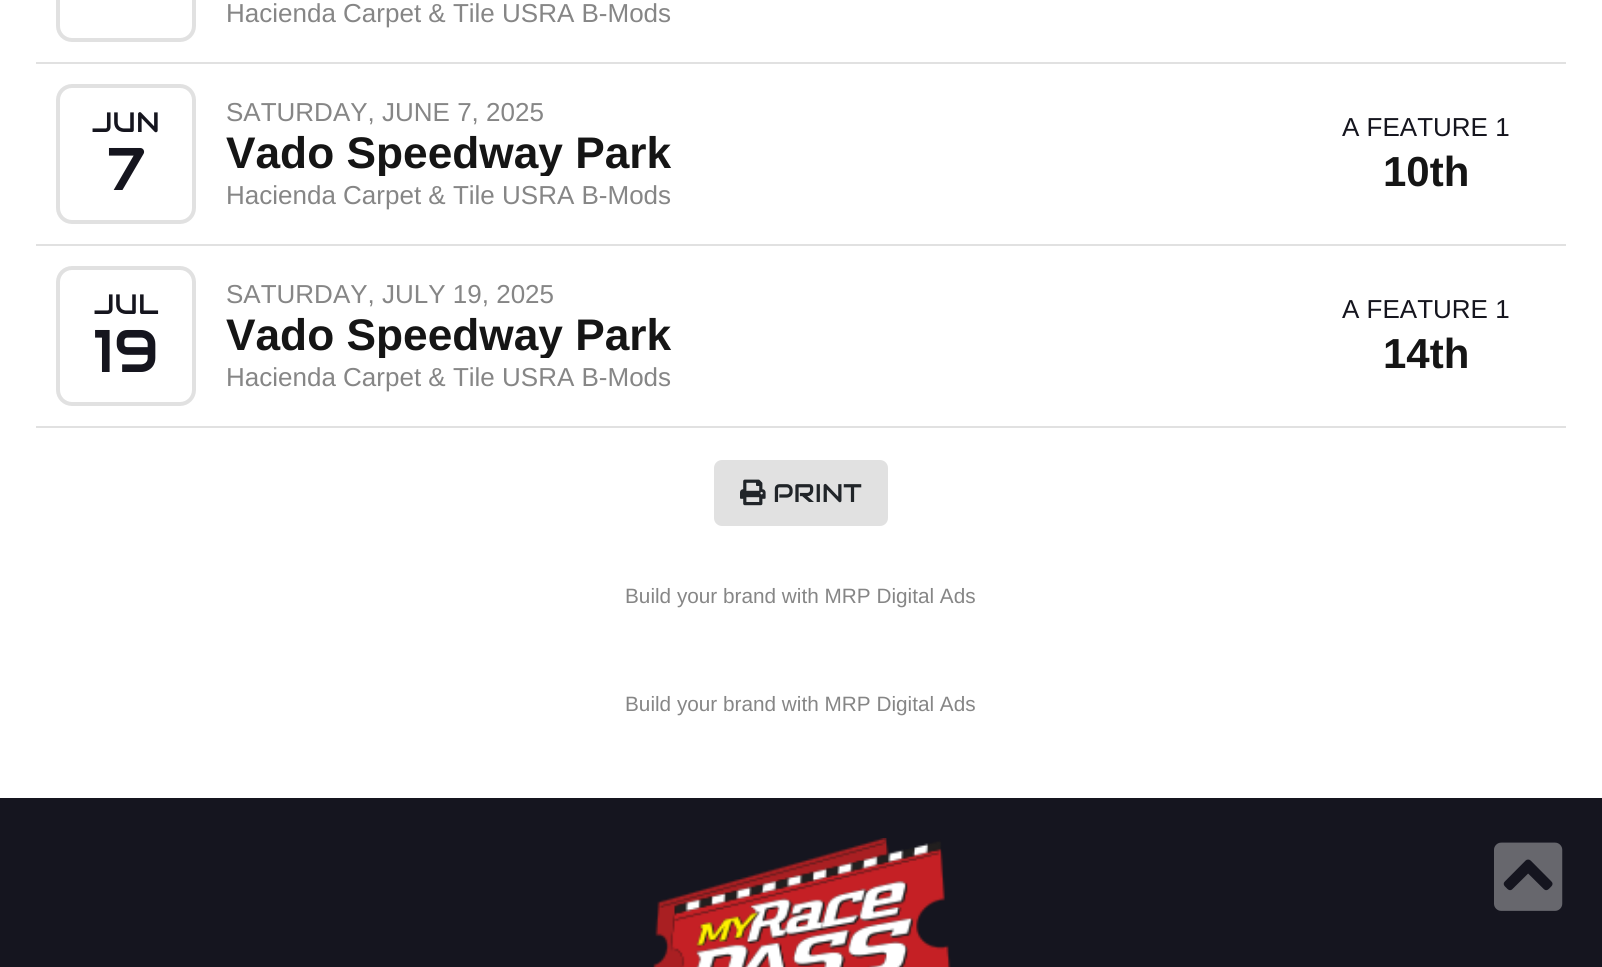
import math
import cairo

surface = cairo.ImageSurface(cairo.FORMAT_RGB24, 1602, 967)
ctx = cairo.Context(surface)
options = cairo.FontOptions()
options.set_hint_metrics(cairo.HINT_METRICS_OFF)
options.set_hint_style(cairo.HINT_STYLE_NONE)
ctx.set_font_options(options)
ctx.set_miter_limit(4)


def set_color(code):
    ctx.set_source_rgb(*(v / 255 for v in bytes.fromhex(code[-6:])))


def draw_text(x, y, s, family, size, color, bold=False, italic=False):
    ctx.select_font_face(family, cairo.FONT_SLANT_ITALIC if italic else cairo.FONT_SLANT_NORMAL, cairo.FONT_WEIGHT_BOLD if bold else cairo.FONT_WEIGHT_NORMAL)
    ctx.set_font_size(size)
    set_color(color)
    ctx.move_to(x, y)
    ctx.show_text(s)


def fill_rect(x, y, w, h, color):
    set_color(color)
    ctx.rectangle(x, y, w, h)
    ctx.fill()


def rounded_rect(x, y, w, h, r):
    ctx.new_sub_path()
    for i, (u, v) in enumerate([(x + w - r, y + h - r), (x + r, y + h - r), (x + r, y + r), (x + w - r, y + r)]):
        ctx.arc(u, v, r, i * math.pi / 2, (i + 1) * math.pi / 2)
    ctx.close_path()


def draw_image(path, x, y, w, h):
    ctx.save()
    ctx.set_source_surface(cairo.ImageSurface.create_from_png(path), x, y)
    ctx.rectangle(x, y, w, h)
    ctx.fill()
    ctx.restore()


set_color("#ffffff")
ctx.paint()
fill_rect(36, 62, 1530, 2, "#e1e1e1")
rounded_rect(58, -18, 136, 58, 14)
ctx.set_line_width(4)
ctx.stroke()
draw_text(226, 22, "Hacienda Carpet & Tile USRA B-Mods", "Liberation Sans", 26, "#868686")
fill_rect(36, 244, 1530, 2, "#e1e1e1")
rounded_rect(58, 86, 136, 136, 14)
ctx.stroke()
draw_text(92, 132, "JUN", "Audiowide", 28, "#15151e")
draw_text(107, 190, "7", "Audiowide", 60, "#15151e")
draw_text(226, 121, "SATURDAY, JUNE 7, 2025", "Liberation Sans", 26, "#868686")
ctx.save()
ctx.rectangle(226, 132, 1060, 44)
ctx.clip()
draw_text(226, 168, "Vado Speedway Park", "Liberation Sans", 44.25, "#151515", bold=True)
ctx.restore()
draw_text(226, 204, "Hacienda Carpet & Tile USRA B-Mods", "Liberation Sans", 26, "#868686")
draw_text(1342, 136, "A FEATURE 1", "Liberation Sans", 26, "#15151e")
draw_text(1383, 186, "10th", "Liberation Sans", 42, "#151515", bold=True)
fill_rect(36, 426, 1530, 2, "#e1e1e1")
rounded_rect(58, 268, 136, 136, 14)
ctx.stroke()
draw_text(94, 314, "JUL", "Audiowide", 28, "#15151e")
draw_text(93, 372, "19", "Audiowide", 60, "#15151e")
draw_text(226, 303, "SATURDAY, JULY 19, 2025", "Liberation Sans", 26, "#868686")
ctx.save()
ctx.rectangle(226, 314, 1060, 44)
ctx.clip()
draw_text(226, 350, "Vado Speedway Park", "Liberation Sans", 44.25, "#151515", bold=True)
ctx.restore()
draw_text(226, 386, "Hacienda Carpet & Tile USRA B-Mods", "Liberation Sans", 26, "#868686")
draw_text(1342, 318, "A FEATURE 1", "Liberation Sans", 26, "#15151e")
draw_text(1383, 368, "14th", "Liberation Sans", 42, "#151515", bold=True)
set_color("#e1e1e1")
rounded_rect(715, 461, 172, 64, 7)
ctx.fill_preserve()
ctx.set_line_width(2)
ctx.stroke()
draw_image("assets/img1.png", 740, 479, 26, 27)
draw_text(773, 502, "PRINT", "Audiowide", 25.5, "#212529")
draw_text(625, 603, "Build your brand with MRP Digital Ads", "Liberation Sans", 20.75, "#868686")
draw_text(625, 711, "Build your brand with MRP Digital Ads", "Liberation Sans", 20.75, "#868686")
fill_rect(0, 798, 1602, 169, "#15151f")
draw_image("assets/img2.png", 653, 838, 298, 129)
draw_image("assets/img3.png", 1494, 842, 69, 69)
surface.write_to_png("output.png")
